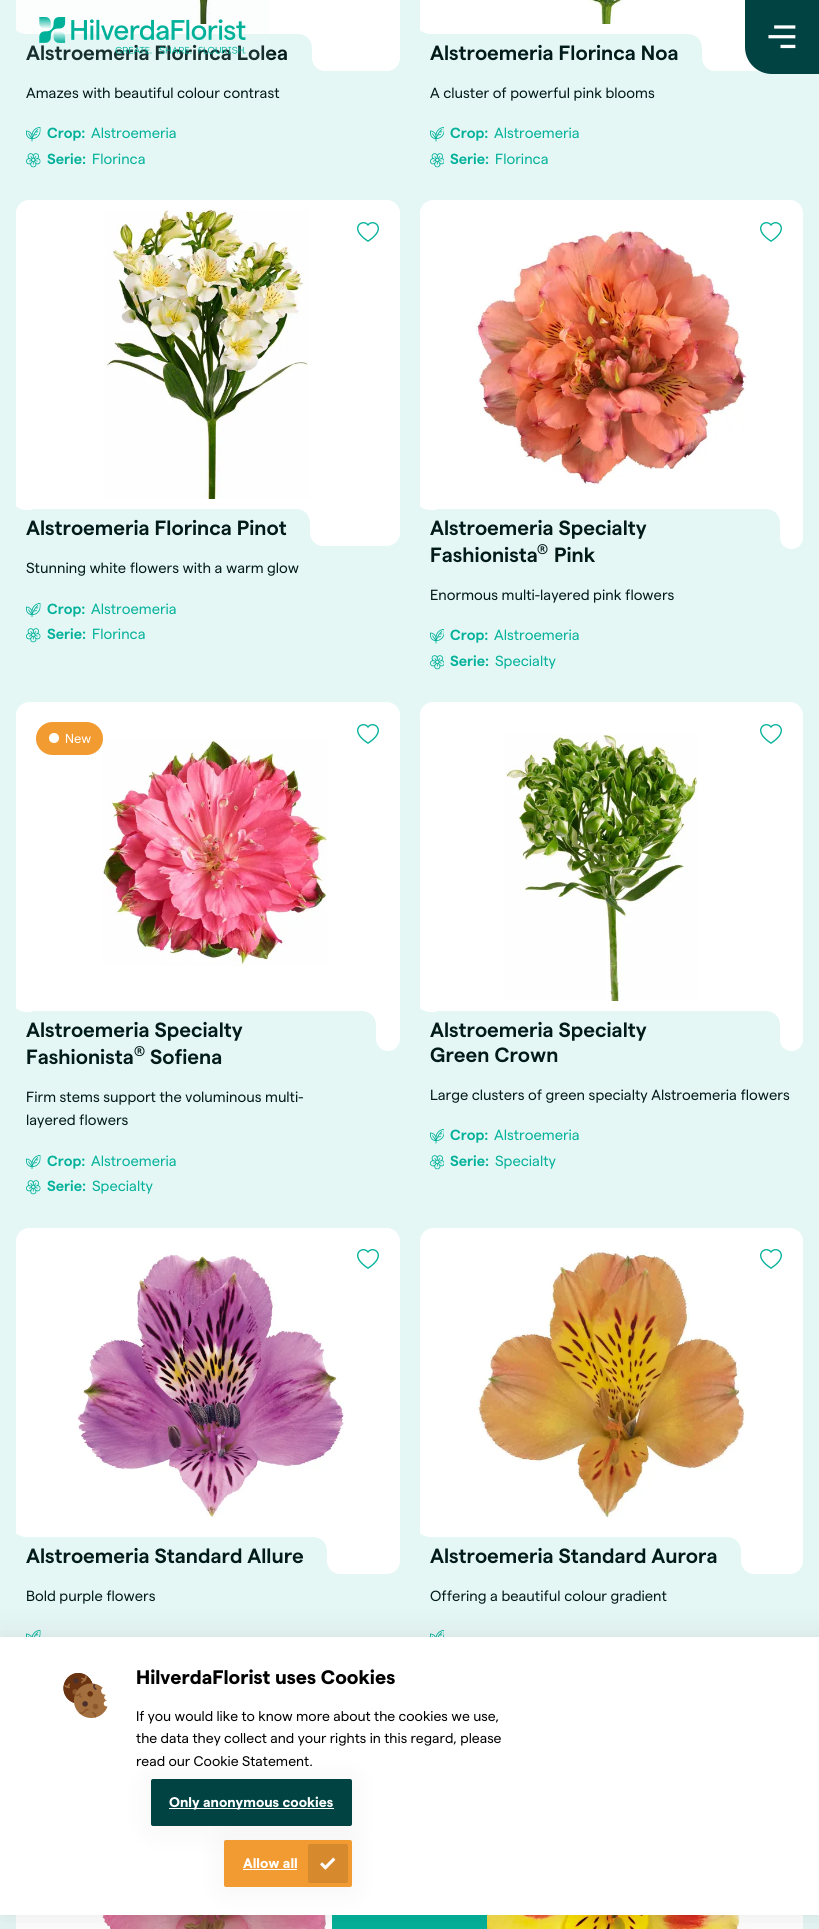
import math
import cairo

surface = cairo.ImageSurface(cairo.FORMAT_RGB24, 819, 1929)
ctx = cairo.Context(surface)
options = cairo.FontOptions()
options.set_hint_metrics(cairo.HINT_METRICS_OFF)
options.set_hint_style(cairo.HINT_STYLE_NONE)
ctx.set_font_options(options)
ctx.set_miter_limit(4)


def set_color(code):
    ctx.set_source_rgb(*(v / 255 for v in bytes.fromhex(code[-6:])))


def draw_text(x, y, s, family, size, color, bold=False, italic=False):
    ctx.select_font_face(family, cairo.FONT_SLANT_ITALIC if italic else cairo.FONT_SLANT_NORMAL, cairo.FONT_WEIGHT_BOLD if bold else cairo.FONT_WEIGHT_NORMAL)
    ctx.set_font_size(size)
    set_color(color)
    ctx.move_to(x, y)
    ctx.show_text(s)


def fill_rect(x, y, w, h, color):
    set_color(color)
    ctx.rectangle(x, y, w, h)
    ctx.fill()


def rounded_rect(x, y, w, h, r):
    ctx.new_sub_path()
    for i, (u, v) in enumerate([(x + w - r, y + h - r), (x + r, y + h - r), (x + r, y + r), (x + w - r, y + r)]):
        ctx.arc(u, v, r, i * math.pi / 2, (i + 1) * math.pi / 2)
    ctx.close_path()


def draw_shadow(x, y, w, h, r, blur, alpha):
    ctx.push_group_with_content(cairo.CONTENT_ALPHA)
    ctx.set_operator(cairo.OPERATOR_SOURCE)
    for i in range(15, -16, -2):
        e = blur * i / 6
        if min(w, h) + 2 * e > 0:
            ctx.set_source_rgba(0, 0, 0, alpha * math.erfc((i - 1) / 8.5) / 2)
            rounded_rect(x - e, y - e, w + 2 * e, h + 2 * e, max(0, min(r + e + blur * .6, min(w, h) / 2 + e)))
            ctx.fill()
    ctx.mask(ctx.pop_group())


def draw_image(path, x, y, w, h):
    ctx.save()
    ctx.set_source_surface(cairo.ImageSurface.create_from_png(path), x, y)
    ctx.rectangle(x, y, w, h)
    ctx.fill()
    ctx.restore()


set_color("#e5f7f5")
ctx.paint()
set_color("#ffffff")
ctx.new_path()
ctx.move_to(29, -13)
ctx.line_to(387, -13)
ctx.curve_to(394, -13, 400, -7, 400, 0)
ctx.line_to(400, 34)
ctx.line_to(29, 34)
ctx.curve_to(22, 34, 16, 28, 16, 21)
ctx.line_to(16, 0)
ctx.curve_to(16, -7, 22, -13, 29, -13)
ctx.close_path()
ctx.fill()
draw_image("assets/img3.png", 198, 0, 13, 24)
ctx.save()
ctx.rectangle(16, 0, 384, 170)
ctx.clip()
ctx.new_path()
ctx.move_to(9, 11)
ctx.line_to(9, 16)
ctx.curve_to(9, 26, 17, 34, 27, 34)
ctx.line_to(32, 34)
ctx.line_to(32, 23.5)
ctx.curve_to(25, 23.5, 19.5, 18, 19.5, 11)
ctx.close_path()
ctx.fill()
ctx.restore()
draw_text(26, 60, "Alstroemeria Florinca Lolea", "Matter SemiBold", 20.6, "#011a1a")
set_color("#ffffff")
ctx.new_path()
ctx.move_to(312, 34)
ctx.line_to(400, 34)
ctx.line_to(400, 58)
ctx.curve_to(400, 65, 394, 71, 387, 71)
ctx.line_to(325, 71)
ctx.curve_to(318, 71, 312, 65, 312, 58)
ctx.close_path()
ctx.fill()
ctx.new_path()
ctx.move_to(51, 24)
ctx.line_to(51, 34)
ctx.line_to(299, 34)
ctx.curve_to(306, 34, 312, 40, 312, 47)
ctx.line_to(312, 49)
ctx.line_to(322, 49)
ctx.curve_to(322, 39, 324, 24, 309, 24)
ctx.close_path()
ctx.fill()
ctx.new_path()
ctx.move_to(41, 24)
ctx.line_to(41, 34)
ctx.line_to(299, 34)
ctx.curve_to(306, 34, 312, 40, 312, 47)
ctx.line_to(312, 37)
ctx.curve_to(312, 30, 306, 24, 299, 24)
ctx.close_path()
ctx.fill()
ctx.set_source_rgba(0.898, 0.969, 0.961, 0.1)
ctx.new_path()
ctx.move_to(16, 0)
ctx.line_to(269, 0)
ctx.line_to(269, 61)
ctx.curve_to(269, 68, 263, 74, 256, 74)
ctx.line_to(29, 74)
ctx.curve_to(22, 74, 16, 68, 16, 61)
ctx.close_path()
ctx.fill()
draw_image("assets/img1.png", 39, 17, 207, 37)
set_color("#ffffff")
ctx.new_path()
ctx.move_to(433, -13)
ctx.line_to(790, -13)
ctx.curve_to(797, -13, 803, -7, 803, 0)
ctx.line_to(803, 34)
ctx.line_to(433, 34)
ctx.curve_to(426, 34, 420, 28, 420, 21)
ctx.line_to(420, 0)
ctx.curve_to(420, -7, 426, -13, 433, -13)
ctx.close_path()
ctx.fill()
ctx.new_path()
ctx.move_to(702, 34)
ctx.line_to(803, 34)
ctx.line_to(803, 58)
ctx.curve_to(803, 65, 797, 71, 790, 71)
ctx.line_to(715, 71)
ctx.curve_to(708, 71, 702, 65, 702, 58)
ctx.close_path()
ctx.fill()
set_color("#014242")
ctx.new_path()
ctx.move_to(745, 0)
ctx.line_to(819, 0)
ctx.line_to(819, 74)
ctx.line_to(772, 74)
ctx.curve_to(757, 74, 745, 62, 745, 47)
ctx.close_path()
ctx.fill()
draw_image("assets/img2.png", 768, 25, 28, 24)
draw_text(26, 98, "Amazes with beautiful colour contrast", "Matter", 14.7, "#011a1a")
draw_image("assets/img4.png", 26, 127, 15, 15)
draw_text(47, 138, "Crop:", "Matter SemiBold", 14.7, "#03b19a")
draw_text(91, 138, "Alstroemeria", "Matter", 14.7, "#03b19a")
draw_image("assets/img5.png", 26, 153, 15, 15)
draw_text(47, 164, "Serie:", "Matter SemiBold", 14.7, "#03b19a")
draw_text(92, 164, "Florinca", "Matter", 14.7, "#03b19a")
draw_image("assets/img6.png", 589, 0, 37, 24)
ctx.save()
ctx.rectangle(420, 0, 383, 170)
ctx.clip()
set_color("#ffffff")
ctx.new_path()
ctx.move_to(413, 11)
ctx.line_to(413, 16)
ctx.curve_to(413, 26, 421, 34, 431, 34)
ctx.line_to(436, 34)
ctx.line_to(436, 23.5)
ctx.curve_to(429, 23.5, 423.5, 18, 423.5, 11)
ctx.close_path()
ctx.fill()
ctx.restore()
draw_text(430, 60, "Alstroemeria Florinca Noa", "Matter SemiBold", 20.6, "#011a1a")
set_color("#ffffff")
ctx.new_path()
ctx.move_to(455, 24)
ctx.line_to(455, 34)
ctx.line_to(689, 34)
ctx.curve_to(696, 34, 702, 40, 702, 47)
ctx.line_to(702, 49)
ctx.line_to(712, 49)
ctx.curve_to(712, 39, 714, 24, 699, 24)
ctx.close_path()
ctx.fill()
ctx.new_path()
ctx.move_to(445, 24)
ctx.line_to(445, 34)
ctx.line_to(689, 34)
ctx.curve_to(696, 34, 702, 40, 702, 47)
ctx.line_to(702, 37)
ctx.curve_to(702, 30, 696, 24, 689, 24)
ctx.close_path()
ctx.fill()
draw_text(430, 98, "A cluster of powerful pink blooms", "Matter", 14.7, "#011a1a")
draw_image("assets/img7.png", 430, 127, 14, 15)
draw_text(450, 138, "Crop:", "Matter SemiBold", 14.7, "#03b19a")
draw_text(494, 138, "Alstroemeria", "Matter", 14.7, "#03b19a")
draw_image("assets/img8.png", 430, 153, 14, 15)
draw_text(450, 164, "Serie:", "Matter SemiBold", 14.7, "#03b19a")
draw_text(495, 164, "Florinca", "Matter", 14.7, "#03b19a")
set_color("#ffffff")
ctx.new_path()
ctx.move_to(29, 200)
ctx.line_to(387, 200)
ctx.curve_to(394, 200, 400, 206, 400, 213)
ctx.line_to(400, 509)
ctx.line_to(29, 509)
ctx.curve_to(22, 509, 16, 503, 16, 496)
ctx.line_to(16, 213)
ctx.curve_to(16, 206, 22, 200, 29, 200)
ctx.close_path()
ctx.fill()
draw_image("assets/img9.png", 105, 210, 204, 289)
draw_image("assets/img10.png", 357, 222, 22, 20)
ctx.save()
ctx.rectangle(16, 200, 384, 446)
ctx.clip()
ctx.new_path()
ctx.move_to(9, 486)
ctx.line_to(9, 492)
ctx.curve_to(9, 502, 17, 510, 27, 510)
ctx.line_to(32, 510)
ctx.line_to(32, 499.5)
ctx.curve_to(24.5, 499.5, 19.5, 493, 19.5, 486)
ctx.close_path()
ctx.fill()
ctx.restore()
draw_text(26, 535, "Alstroemeria Florinca Pinot", "Matter SemiBold", 20.6, "#011a1a")
set_color("#ffffff")
ctx.new_path()
ctx.move_to(310, 509)
ctx.line_to(400, 509)
ctx.line_to(400, 533)
ctx.curve_to(400, 540, 394, 546, 387, 546)
ctx.line_to(323, 546)
ctx.curve_to(316, 546, 310, 540, 310, 533)
ctx.close_path()
ctx.fill()
ctx.new_path()
ctx.move_to(51, 499)
ctx.line_to(51, 509)
ctx.line_to(297, 509)
ctx.curve_to(304, 509, 310, 515, 310, 522)
ctx.line_to(310, 524)
ctx.line_to(320, 524)
ctx.curve_to(320, 514, 322, 499, 307, 499)
ctx.close_path()
ctx.fill()
ctx.new_path()
ctx.move_to(41, 499)
ctx.line_to(41, 509)
ctx.line_to(297, 509)
ctx.curve_to(304, 509, 310, 515, 310, 522)
ctx.line_to(310, 512)
ctx.curve_to(310, 505, 304, 499, 297, 499)
ctx.close_path()
ctx.fill()
draw_text(26, 573, "Stunning white flowers with a warm glow", "Matter", 14.7, "#011a1a")
draw_image("assets/img11.png", 26, 603, 15, 14)
draw_text(47, 614, "Crop:", "Matter SemiBold", 14.7, "#03b19a")
draw_text(91, 614, "Alstroemeria", "Matter", 14.7, "#03b19a")
draw_image("assets/img5.png", 26, 628, 15, 15)
draw_text(47, 639, "Serie:", "Matter SemiBold", 14.7, "#03b19a")
draw_text(92, 639, "Florinca", "Matter", 14.7, "#03b19a")
set_color("#ffffff")
ctx.new_path()
ctx.move_to(433, 200)
ctx.line_to(790, 200)
ctx.curve_to(797, 200, 803, 206, 803, 213)
ctx.line_to(803, 509)
ctx.line_to(433, 509)
ctx.curve_to(426, 509, 420, 503, 420, 496)
ctx.line_to(420, 213)
ctx.curve_to(420, 206, 426, 200, 433, 200)
ctx.close_path()
ctx.fill()
draw_image("assets/img12.png", 475, 229, 274, 256)
draw_image("assets/img10.png", 760, 222, 22, 20)
ctx.save()
ctx.rectangle(420, 200, 383, 472)
ctx.clip()
ctx.new_path()
ctx.move_to(413, 486)
ctx.line_to(413, 492)
ctx.curve_to(413, 502, 421, 510, 431, 510)
ctx.line_to(436, 510)
ctx.line_to(436, 499.5)
ctx.curve_to(428.5, 499.5, 423.5, 493, 423.5, 486)
ctx.close_path()
ctx.fill()
ctx.restore()
draw_text(430, 535, "Alstroemeria Specialty", "Matter SemiBold", 20.6, "#011a1a")
set_color("#ffffff")
ctx.new_path()
ctx.move_to(780, 509)
ctx.line_to(803, 509)
ctx.line_to(803, 537.5)
ctx.curve_to(803, 544, 798, 549, 791.5, 549)
ctx.curve_to(785, 549, 780, 544, 780, 537.5)
ctx.close_path()
ctx.fill()
ctx.new_path()
ctx.move_to(455, 499)
ctx.line_to(455, 509)
ctx.line_to(767, 509)
ctx.curve_to(774, 509, 780, 515, 780, 522)
ctx.line_to(780, 524)
ctx.line_to(790, 524)
ctx.curve_to(790, 514, 792, 499, 777, 499)
ctx.close_path()
ctx.fill()
ctx.new_path()
ctx.move_to(445, 499)
ctx.line_to(445, 509)
ctx.line_to(767, 509)
ctx.curve_to(774, 509, 780, 515, 780, 522)
ctx.line_to(780, 512)
ctx.curve_to(780, 505, 774, 499, 767, 499)
ctx.close_path()
ctx.fill()
draw_text(430, 562, "Fashionista", "Matter SemiBold", 20.6, "#011a1a")
draw_text(537, 554, "®", "Matter SemiBold", 14, "#011a1a")
draw_text(554, 562, "Pink", "Matter SemiBold", 20.6, "#011a1a")
draw_text(430, 600, "Enormous multi-layered pink flowers", "Matter", 14.7, "#011a1a")
draw_image("assets/img7.png", 430, 629, 14, 15)
draw_text(450, 640, "Crop:", "Matter SemiBold", 14.7, "#03b19a")
draw_text(494, 640, "Alstroemeria", "Matter", 14.7, "#03b19a")
draw_image("assets/img8.png", 430, 655, 14, 15)
draw_text(450, 666, "Serie:", "Matter SemiBold", 14.7, "#03b19a")
draw_text(495, 666, "Specialty", "Matter", 14.7, "#03b19a")
set_color("#ffffff")
ctx.new_path()
ctx.move_to(29, 702)
ctx.line_to(387, 702)
ctx.curve_to(394, 702, 400, 708, 400, 715)
ctx.line_to(400, 1011)
ctx.line_to(29, 1011)
ctx.curve_to(22, 1011, 16, 1005, 16, 998)
ctx.line_to(16, 715)
ctx.curve_to(16, 708, 22, 702, 29, 702)
ctx.close_path()
ctx.fill()
draw_image("assets/img13.png", 102, 740, 225, 226)
set_color("#f29b31")
rounded_rect(36, 722, 67, 33, 16.5)
ctx.fill()
set_color("#ffffff")
ctx.arc(54, 738, 5, 0, 2 * math.pi)
ctx.fill()
draw_text(65, 743, "New", "Matter", 13, "#ffffff")
draw_image("assets/img10.png", 357, 724, 22, 20)
ctx.save()
ctx.rectangle(16, 702, 384, 496)
ctx.clip()
ctx.new_path()
ctx.move_to(9, 988)
ctx.line_to(9, 994)
ctx.curve_to(9, 1004, 17, 1012, 27, 1012)
ctx.line_to(32, 1012)
ctx.line_to(32, 1001.5)
ctx.curve_to(24.5, 1001.5, 19.5, 995, 19.5, 988)
ctx.close_path()
ctx.fill()
ctx.restore()
draw_text(26, 1037, "Alstroemeria Specialty", "Matter SemiBold", 20.6, "#011a1a")
set_color("#ffffff")
ctx.new_path()
ctx.move_to(376, 1011)
ctx.line_to(400, 1011)
ctx.line_to(400, 1039)
ctx.curve_to(400, 1045.5, 394.5, 1051, 388, 1051)
ctx.curve_to(381.5, 1051, 376, 1045.5, 376, 1039)
ctx.close_path()
ctx.fill()
ctx.new_path()
ctx.move_to(51, 1001)
ctx.line_to(51, 1011)
ctx.line_to(363, 1011)
ctx.curve_to(370, 1011, 376, 1017, 376, 1024)
ctx.line_to(376, 1026)
ctx.line_to(386, 1026)
ctx.curve_to(386, 1016, 388, 1001, 373, 1001)
ctx.close_path()
ctx.fill()
ctx.new_path()
ctx.move_to(41, 1001)
ctx.line_to(41, 1011)
ctx.line_to(363, 1011)
ctx.curve_to(370, 1011, 376, 1017, 376, 1024)
ctx.line_to(376, 1014)
ctx.curve_to(376, 1007, 370, 1001, 363, 1001)
ctx.close_path()
ctx.fill()
draw_text(26, 1064, "Fashionista", "Matter SemiBold", 20.6, "#011a1a")
draw_text(134, 1056, "®", "Matter SemiBold", 14, "#011a1a")
draw_text(150, 1064, "Sofiena", "Matter SemiBold", 20.6, "#011a1a")
draw_text(26, 1102, "Firm stems support the voluminous multi-", "Matter", 14.7, "#011a1a")
draw_text(26, 1125, "layered flowers", "Matter", 14.7, "#011a1a")
draw_image("assets/img11.png", 26, 1155, 15, 14)
draw_text(47, 1166, "Crop:", "Matter SemiBold", 14.7, "#03b19a")
draw_text(91, 1166, "Alstroemeria", "Matter", 14.7, "#03b19a")
draw_image("assets/img5.png", 26, 1180, 15, 15)
draw_text(47, 1191, "Serie:", "Matter SemiBold", 14.7, "#03b19a")
draw_text(92, 1191, "Specialty", "Matter", 14.7, "#03b19a")
set_color("#ffffff")
ctx.new_path()
ctx.move_to(433, 702)
ctx.line_to(790, 702)
ctx.curve_to(797, 702, 803, 708, 803, 715)
ctx.line_to(803, 1011)
ctx.line_to(433, 1011)
ctx.curve_to(426, 1011, 420, 1005, 420, 998)
ctx.line_to(420, 715)
ctx.curve_to(420, 708, 426, 702, 433, 702)
ctx.close_path()
ctx.fill()
draw_image("assets/img14.png", 504, 734, 194, 267)
draw_image("assets/img10.png", 760, 724, 22, 20)
ctx.save()
ctx.rectangle(420, 702, 383, 471)
ctx.clip()
ctx.new_path()
ctx.move_to(413, 988)
ctx.line_to(413, 994)
ctx.curve_to(413, 1004, 421, 1012, 431, 1012)
ctx.line_to(436, 1012)
ctx.line_to(436, 1001.5)
ctx.curve_to(428.5, 1001.5, 423.5, 995, 423.5, 988)
ctx.close_path()
ctx.fill()
ctx.restore()
draw_text(430, 1037, "Alstroemeria Specialty", "Matter SemiBold", 20.6, "#011a1a")
set_color("#ffffff")
ctx.new_path()
ctx.move_to(780, 1011)
ctx.line_to(803, 1011)
ctx.line_to(803, 1039.5)
ctx.curve_to(803, 1046, 798, 1051, 791.5, 1051)
ctx.curve_to(785, 1051, 780, 1046, 780, 1039.5)
ctx.close_path()
ctx.fill()
ctx.new_path()
ctx.move_to(455, 1001)
ctx.line_to(455, 1011)
ctx.line_to(767, 1011)
ctx.curve_to(774, 1011, 780, 1017, 780, 1024)
ctx.line_to(780, 1026)
ctx.line_to(790, 1026)
ctx.curve_to(790, 1016, 792, 1001, 777, 1001)
ctx.close_path()
ctx.fill()
ctx.new_path()
ctx.move_to(445, 1001)
ctx.line_to(445, 1011)
ctx.line_to(767, 1011)
ctx.curve_to(774, 1011, 780, 1017, 780, 1024)
ctx.line_to(780, 1014)
ctx.curve_to(780, 1007, 774, 1001, 767, 1001)
ctx.close_path()
ctx.fill()
draw_text(430, 1062, "Green Crown", "Matter SemiBold", 20.6, "#011a1a")
draw_text(430, 1100, "Large clusters of green specialty Alstroemeria flowers", "Matter", 14.7, "#011a1a")
draw_image("assets/img7.png", 430, 1129, 14, 15)
draw_text(450, 1140, "Crop:", "Matter SemiBold", 14.7, "#03b19a")
draw_text(494, 1140, "Alstroemeria", "Matter", 14.7, "#03b19a")
draw_image("assets/img8.png", 430, 1155, 14, 15)
draw_text(450, 1166, "Serie:", "Matter SemiBold", 14.7, "#03b19a")
draw_text(495, 1166, "Specialty", "Matter", 14.7, "#03b19a")
set_color("#ffffff")
ctx.new_path()
ctx.move_to(29, 1228)
ctx.line_to(387, 1228)
ctx.curve_to(394, 1228, 400, 1234, 400, 1241)
ctx.line_to(400, 1537)
ctx.line_to(29, 1537)
ctx.curve_to(22, 1537, 16, 1531, 16, 1524)
ctx.line_to(16, 1241)
ctx.curve_to(16, 1234, 22, 1228, 29, 1228)
ctx.close_path()
ctx.fill()
draw_image("assets/img15.png", 77, 1254, 268, 264)
draw_image("assets/img10.png", 357, 1249, 22, 20)
ctx.save()
ctx.rectangle(16, 1228, 384, 445)
ctx.clip()
ctx.new_path()
ctx.move_to(9, 1514)
ctx.line_to(9, 1519)
ctx.curve_to(9, 1529, 17, 1537, 27, 1537)
ctx.line_to(32, 1537)
ctx.line_to(32, 1526.5)
ctx.curve_to(25, 1526.5, 19.5, 1521, 19.5, 1514)
ctx.close_path()
ctx.fill()
ctx.restore()
draw_text(26, 1563, "Alstroemeria Standard Allure", "Matter SemiBold", 20.6, "#011a1a")
set_color("#ffffff")
ctx.new_path()
ctx.move_to(327, 1537)
ctx.line_to(400, 1537)
ctx.line_to(400, 1561)
ctx.curve_to(400, 1568, 394, 1574, 387, 1574)
ctx.line_to(340, 1574)
ctx.curve_to(333, 1574, 327, 1568, 327, 1561)
ctx.close_path()
ctx.fill()
ctx.new_path()
ctx.move_to(51, 1527)
ctx.line_to(51, 1537)
ctx.line_to(314, 1537)
ctx.curve_to(321, 1537, 327, 1543, 327, 1550)
ctx.line_to(327, 1552)
ctx.line_to(337, 1552)
ctx.curve_to(337, 1542, 339, 1527, 324, 1527)
ctx.close_path()
ctx.fill()
ctx.new_path()
ctx.move_to(41, 1527)
ctx.line_to(41, 1537)
ctx.line_to(314, 1537)
ctx.curve_to(321, 1537, 327, 1543, 327, 1550)
ctx.line_to(327, 1540)
ctx.curve_to(327, 1533, 321, 1527, 314, 1527)
ctx.close_path()
ctx.fill()
draw_text(26, 1601, "Bold purple flowers", "Matter", 14.7, "#011a1a")
draw_image("assets/img16.png", 26, 1630, 15, 7)
set_color("#ffffff")
ctx.new_path()
ctx.move_to(433, 1228)
ctx.line_to(790, 1228)
ctx.curve_to(797, 1228, 803, 1234, 803, 1241)
ctx.line_to(803, 1537)
ctx.line_to(433, 1537)
ctx.curve_to(426, 1537, 420, 1531, 420, 1524)
ctx.line_to(420, 1241)
ctx.curve_to(420, 1234, 426, 1228, 433, 1228)
ctx.close_path()
ctx.fill()
draw_image("assets/img17.png", 476, 1252, 269, 266)
draw_image("assets/img10.png", 760, 1249, 22, 20)
ctx.save()
ctx.rectangle(420, 1228, 383, 445)
ctx.clip()
ctx.new_path()
ctx.move_to(413, 1514)
ctx.line_to(413, 1519)
ctx.curve_to(413, 1529, 421, 1537, 431, 1537)
ctx.line_to(436, 1537)
ctx.line_to(436, 1526.5)
ctx.curve_to(429, 1526.5, 423.5, 1521, 423.5, 1514)
ctx.close_path()
ctx.fill()
ctx.restore()
draw_text(430, 1563, "Alstroemeria Standard Aurora", "Matter SemiBold", 20.6, "#011a1a")
set_color("#ffffff")
ctx.new_path()
ctx.move_to(741, 1537)
ctx.line_to(803, 1537)
ctx.line_to(803, 1561)
ctx.curve_to(803, 1568, 797, 1574, 790, 1574)
ctx.line_to(754, 1574)
ctx.curve_to(747, 1574, 741, 1568, 741, 1561)
ctx.close_path()
ctx.fill()
ctx.new_path()
ctx.move_to(455, 1527)
ctx.line_to(455, 1537)
ctx.line_to(728, 1537)
ctx.curve_to(735, 1537, 741, 1543, 741, 1550)
ctx.line_to(741, 1552)
ctx.line_to(751, 1552)
ctx.curve_to(751, 1542, 753, 1527, 738, 1527)
ctx.close_path()
ctx.fill()
ctx.new_path()
ctx.move_to(445, 1527)
ctx.line_to(445, 1537)
ctx.line_to(728, 1537)
ctx.curve_to(735, 1537, 741, 1543, 741, 1550)
ctx.line_to(741, 1540)
ctx.curve_to(741, 1533, 735, 1527, 728, 1527)
ctx.close_path()
ctx.fill()
draw_text(430, 1601, "Offering a beautiful colour gradient", "Matter", 14.7, "#011a1a")
draw_image("assets/img18.png", 430, 1630, 14, 7)
fill_rect(16, 1915, 80, 14, "#ffffff")
draw_image("assets/img19.png", 96, 1915, 236, 14)
draw_image("assets/img20.png", 487, 1915, 258, 14)
fill_rect(745, 1915, 58, 14, "#ffffff")
fill_rect(332, 1915, 155, 14, "#03b19a")
set_color("#000000")
draw_shadow(0, 1637, 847, 278, 0, 15, 0.1)
fill_rect(0, 1637, 819, 278, "#ffffff")
draw_image("assets/img21.png", 63, 1673, 45, 45)
draw_text(136, 1684, "HilverdaFlorist uses Cookies", "Matter", 19.6, "#000000", bold=True)
draw_text(136, 1721, "If you would like to know more about the cookies we use,", "Matter", 14, "#000000")
draw_text(136, 1743, "the data they collect and your rights in this regard, please", "Matter", 14, "#000000")
draw_text(136, 1766, "read our Cookie Statement.", "Matter", 14, "#000000")
set_color("#000000")
draw_shadow(151, 1781, 201, 47, 2, 15, 0.05)
set_color("#014242")
rounded_rect(151, 1779, 201, 47, 2)
ctx.fill()
fill_rect(169, 1808, 165, 1, "#ffffff")
draw_text(169, 1807, "Only anonymous cookies", "Matter", 14, "#ffffff", bold=True)
set_color("#000000")
draw_shadow(224, 1842, 128, 47, 2, 15, 0.05)
set_color("#f29b32")
rounded_rect(224, 1840, 128, 47, 2)
ctx.fill()
draw_text(243, 1868, "Allow all", "Matter", 14, "#ffffff", bold=True)
fill_rect(243, 1869, 54, 1, "#ffffff")
set_color("#d78a2d")
rounded_rect(308, 1844, 40, 39, 2)
ctx.fill()
draw_image("assets/img22.png", 320, 1857, 16, 13)
surface.write_to_png("output.png")
